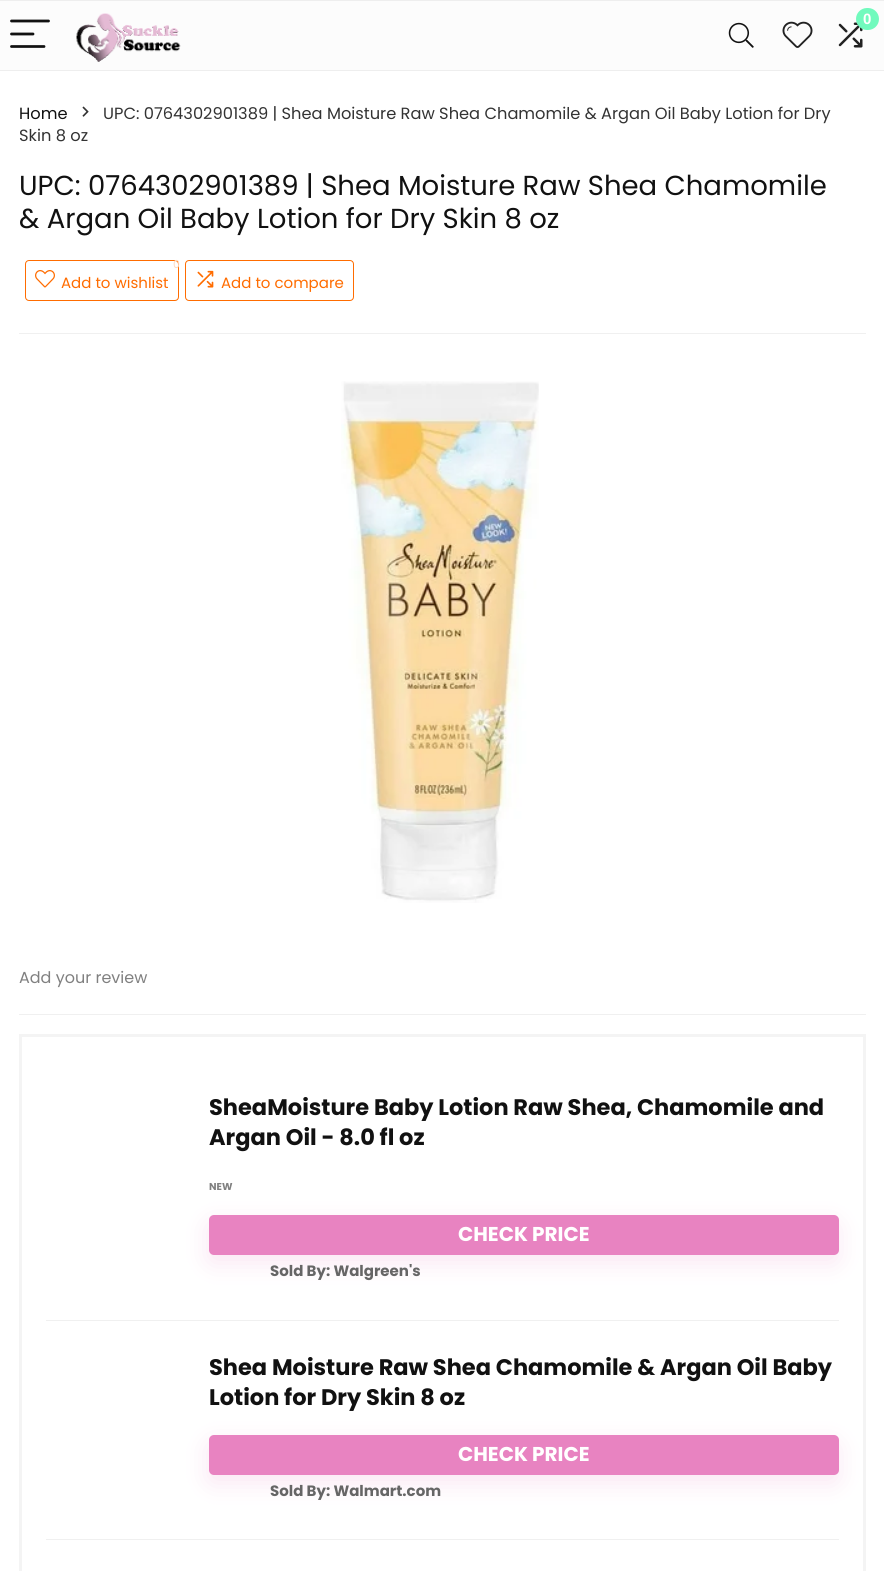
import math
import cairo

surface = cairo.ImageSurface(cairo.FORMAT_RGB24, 884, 1571)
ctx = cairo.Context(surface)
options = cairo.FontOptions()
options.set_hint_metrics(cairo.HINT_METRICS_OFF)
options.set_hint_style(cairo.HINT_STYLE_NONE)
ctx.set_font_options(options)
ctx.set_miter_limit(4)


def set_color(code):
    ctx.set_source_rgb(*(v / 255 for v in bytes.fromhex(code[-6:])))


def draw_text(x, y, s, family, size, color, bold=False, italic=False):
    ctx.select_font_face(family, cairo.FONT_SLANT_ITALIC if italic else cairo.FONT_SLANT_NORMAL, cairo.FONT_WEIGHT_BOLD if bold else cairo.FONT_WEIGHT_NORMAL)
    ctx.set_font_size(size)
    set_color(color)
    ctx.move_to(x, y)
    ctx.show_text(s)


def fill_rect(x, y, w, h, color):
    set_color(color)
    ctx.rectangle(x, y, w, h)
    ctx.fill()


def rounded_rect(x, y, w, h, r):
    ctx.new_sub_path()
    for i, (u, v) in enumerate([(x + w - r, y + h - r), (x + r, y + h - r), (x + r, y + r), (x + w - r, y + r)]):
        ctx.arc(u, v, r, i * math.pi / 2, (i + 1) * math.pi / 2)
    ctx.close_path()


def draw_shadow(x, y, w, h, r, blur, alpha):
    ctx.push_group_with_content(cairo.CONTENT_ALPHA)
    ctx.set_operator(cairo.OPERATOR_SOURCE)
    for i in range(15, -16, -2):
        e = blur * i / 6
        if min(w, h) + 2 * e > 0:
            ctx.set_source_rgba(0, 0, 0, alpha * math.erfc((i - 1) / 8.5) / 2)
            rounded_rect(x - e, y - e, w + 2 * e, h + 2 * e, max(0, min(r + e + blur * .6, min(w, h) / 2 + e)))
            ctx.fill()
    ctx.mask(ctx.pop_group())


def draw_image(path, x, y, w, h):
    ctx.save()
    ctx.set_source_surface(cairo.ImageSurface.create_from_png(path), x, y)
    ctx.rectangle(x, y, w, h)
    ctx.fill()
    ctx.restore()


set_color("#ffffff")
ctx.paint()
fill_rect(0, 1, 884, 69, "#fcfcfc")
fill_rect(0, 0, 884, 1, "#eeeeee")
fill_rect(0, 70, 884, 1, "#eeeeee")
ctx.new_path()
ctx.move_to(11.5, 21)
ctx.line_to(48.5, 21)
ctx.move_to(11.5, 34)
ctx.line_to(33, 34)
ctx.move_to(11.5, 46.5)
ctx.line_to(44, 46.5)
set_color("#111111")
ctx.set_line_width(2.8)
ctx.set_line_cap(cairo.LINE_CAP_ROUND)
ctx.stroke()
draw_image("assets/img1.png", 76, 13, 105, 49)
draw_image("assets/img2.png", 838, 22, 25, 26)
set_color("#71fabd")
rounded_rect(856, 8, 23, 22, 11)
ctx.fill()
draw_text(863, 24, "0", "Liberation Sans", 15, "#ffffff", bold=True)
draw_image("assets/img3.png", 728, 22, 26, 26)
draw_image("assets/img4.png", 782, 21, 31, 27)
draw_text(19, 119, "Home", "Poppins", 16.25, "#111111")
draw_image("assets/img5.png", 82, 106, 7, 11)
draw_text(103, 119, "UPC: 0764302901389 | Shea Moisture Raw Shea Chamomile & Argan Oil Baby Lotion for Dry", "Poppins", 16.25, "#333333")
draw_text(19, 141, "Skin 8 oz", "Poppins", 16.25, "#333333")
draw_text(19, 195, "UPC: 0764302901389 | Shea Moisture Raw Shea Chamomile", "Poppins", 27.5, "#111111")
draw_text(19, 228, "& Argan Oil Baby Lotion for Dry Skin 8 oz", "Poppins", 27.5, "#111111")
rounded_rect(25.5, 260.5, 153, 40, 3.5)
set_color("#ff6c00")
ctx.set_line_width(1)
ctx.set_line_cap(cairo.LINE_CAP_BUTT)
ctx.stroke()
draw_text(173, 268, "0", "Poppins", 11, "#ffdabf")
draw_image("assets/img6.png", 35, 270, 20, 18)
draw_text(61, 288, "Add to wishlist", "Poppins", 15, "#ff6c00")
rounded_rect(185.5, 260.5, 168, 40, 3.5)
ctx.stroke()
draw_image("assets/img7.png", 197, 270, 17, 18)
draw_text(221, 288, "Add to compare", "Poppins", 15, "#ff6c00")
fill_rect(19, 333, 847, 1, "#f0f0f0")
draw_image("assets/img8.png", 341, 381, 198, 522)
draw_text(19, 983, "Add your review", "Poppins", 16, "#808080")
fill_rect(19, 1014, 847, 1, "#f0f0f0")
ctx.rectangle(20.5, 1035.5, 844, 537)
set_color("#f4f4f4")
ctx.set_line_width(3)
ctx.stroke()
fill_rect(46, 1320, 793, 1, "#f0f0f0")
draw_text(209, 1115, "SheaMoisture Baby Lotion Raw Shea, Chamomile and", "Poppins", 22.5, "#111111", bold=True)
draw_text(209, 1145, "Argan Oil - 8.0 fl oz", "Poppins", 22.5, "#111111", bold=True)
draw_text(209, 1190, "NEW", "Poppins", 10, "#808080", bold=True)
set_color("#e883c1")
draw_shadow(208, 1223, 630, 40, 5, 12, 0.2)
set_color("#e883c1")
rounded_rect(209, 1215, 630, 40, 5)
ctx.fill()
draw_text(458, 1241, "CHECK PRICE", "Poppins", 20, "#ffffff", bold=True)
draw_text(270, 1276, "Sold By: Walgreen's", "Poppins", 15, "#666666", bold=True)
fill_rect(46, 1539, 793, 1, "#f0f0f0")
draw_text(209, 1375, "Shea Moisture Raw Shea Chamomile & Argan Oil Baby", "Poppins", 22.5, "#111111", bold=True)
draw_text(209, 1405, "Lotion for Dry Skin 8 oz", "Poppins", 22.5, "#111111", bold=True)
set_color("#e883c1")
draw_shadow(208, 1443, 630, 40, 5, 12, 0.2)
set_color("#e883c1")
rounded_rect(209, 1435, 630, 40, 5)
ctx.fill()
draw_text(458, 1461, "CHECK PRICE", "Poppins", 20, "#ffffff", bold=True)
draw_text(270, 1496, "Sold By: Walmart.com", "Poppins", 15, "#666666", bold=True)
surface.write_to_png("output.png")
